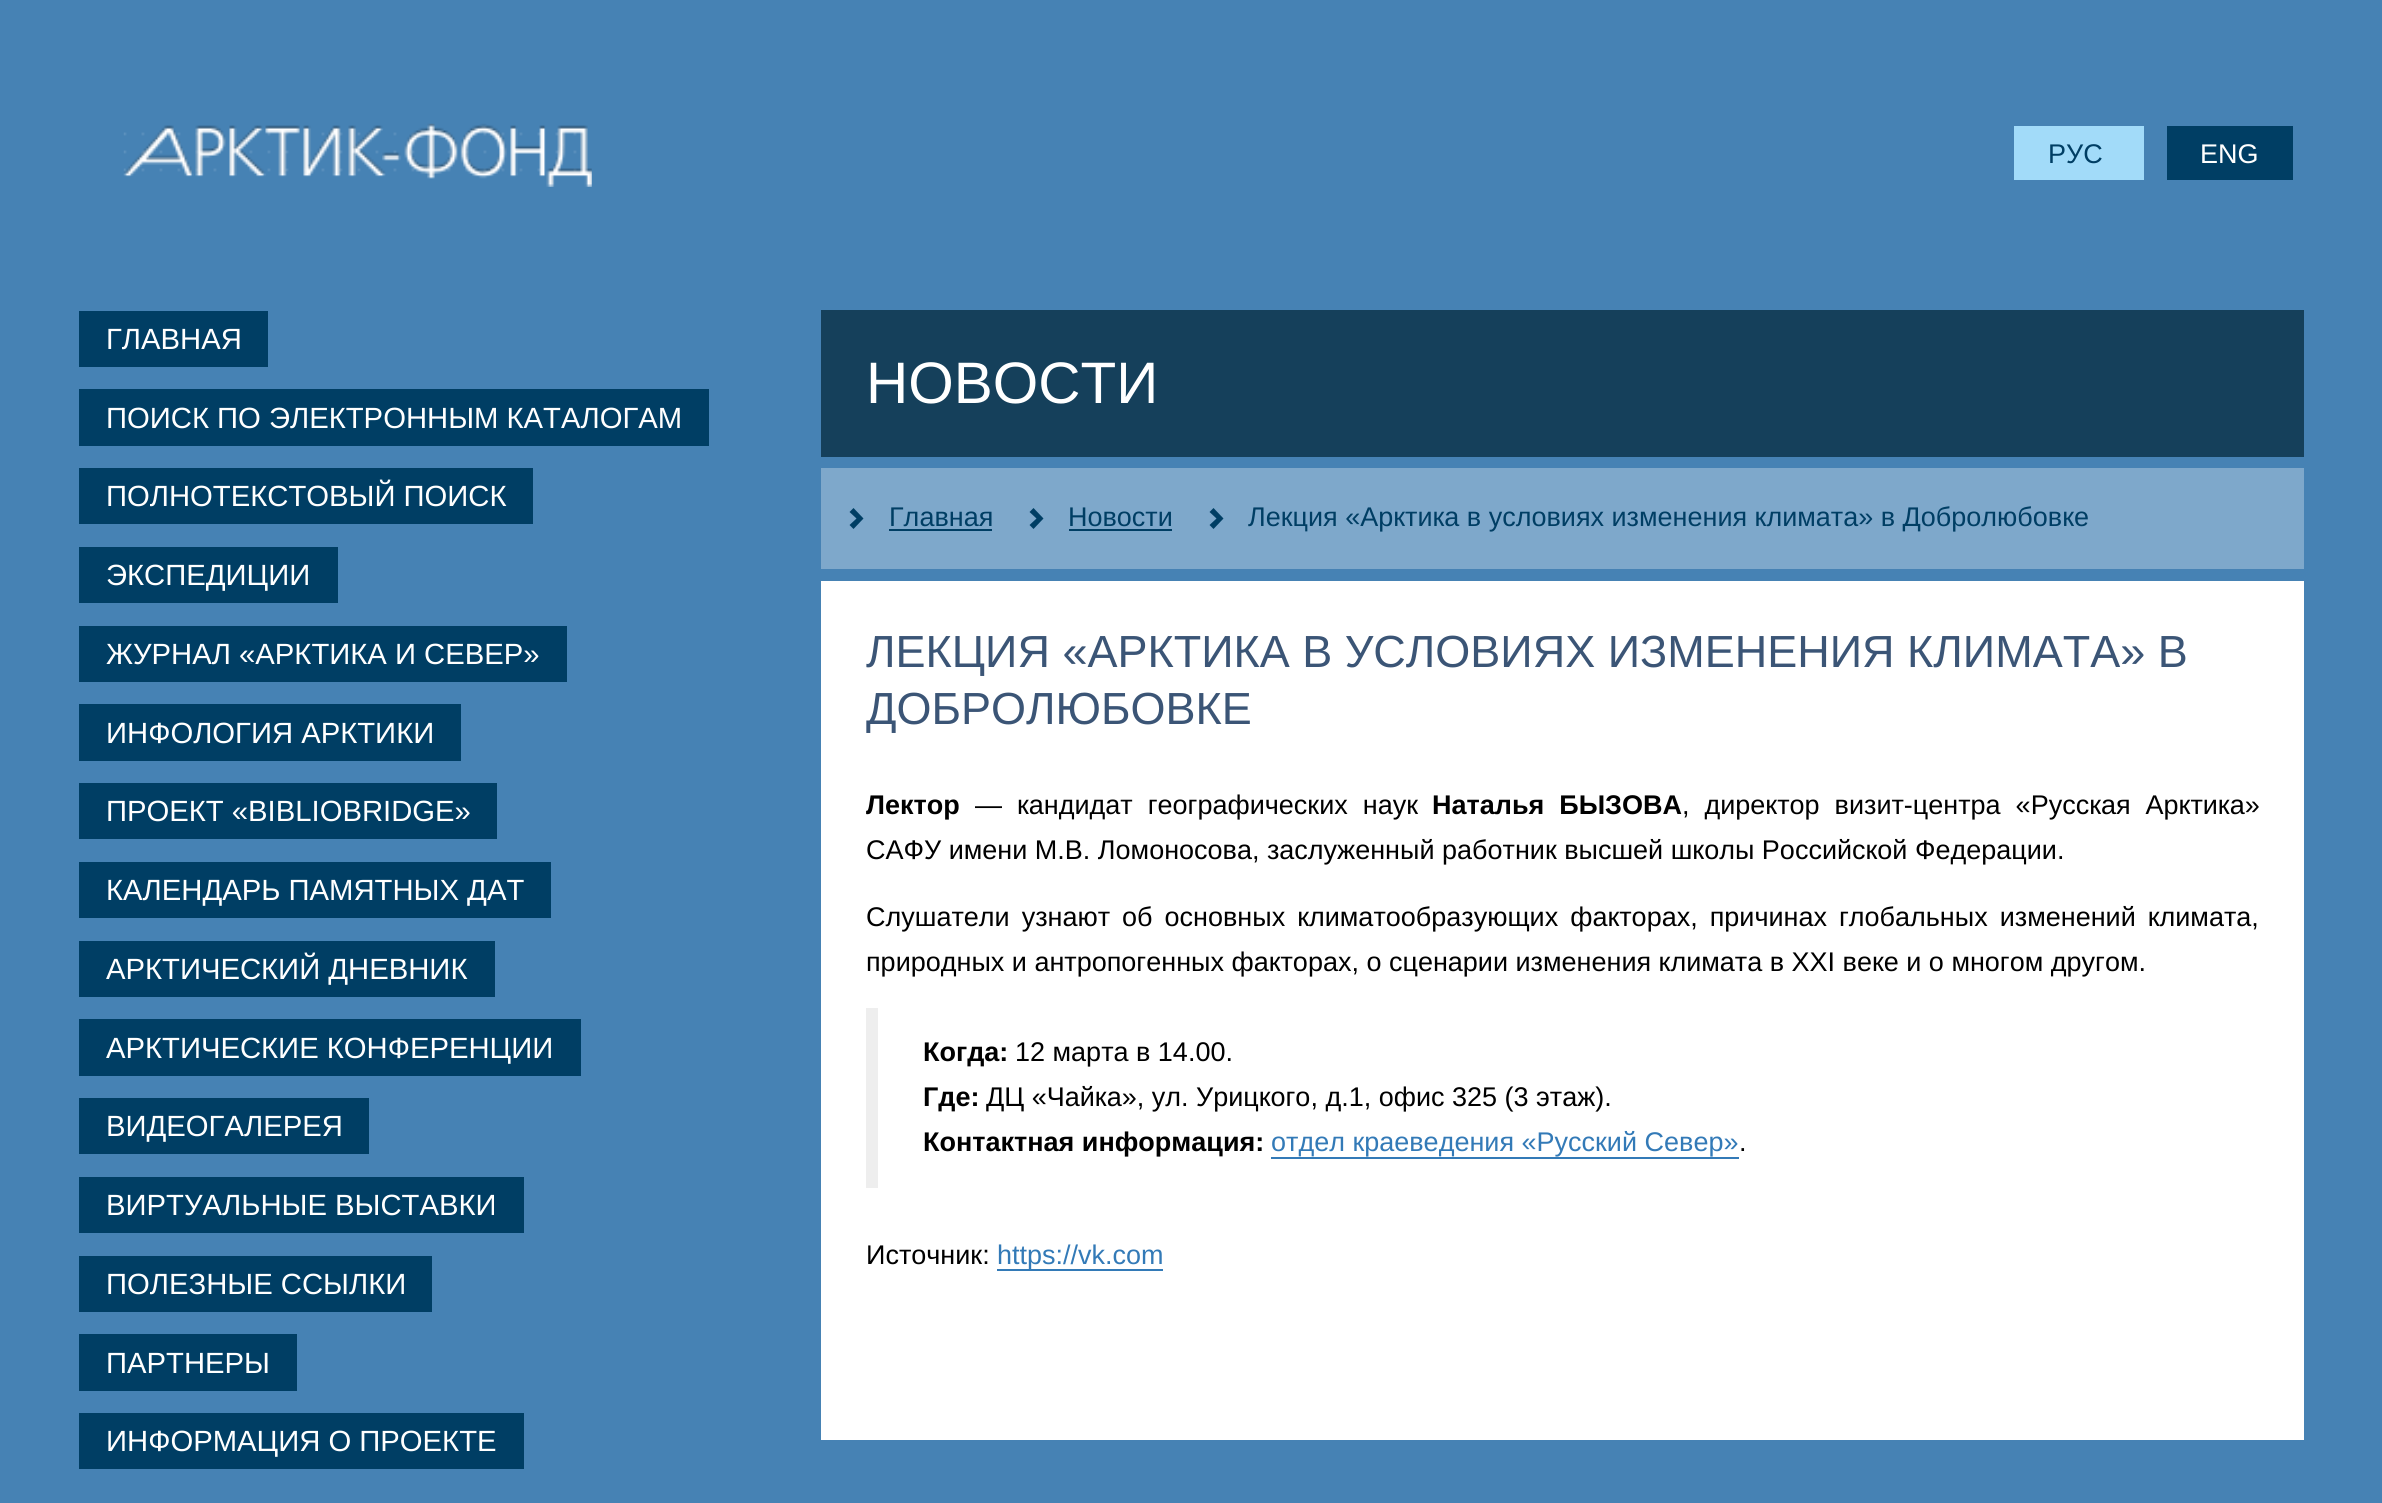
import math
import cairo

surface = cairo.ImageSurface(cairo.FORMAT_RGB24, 2382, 1503)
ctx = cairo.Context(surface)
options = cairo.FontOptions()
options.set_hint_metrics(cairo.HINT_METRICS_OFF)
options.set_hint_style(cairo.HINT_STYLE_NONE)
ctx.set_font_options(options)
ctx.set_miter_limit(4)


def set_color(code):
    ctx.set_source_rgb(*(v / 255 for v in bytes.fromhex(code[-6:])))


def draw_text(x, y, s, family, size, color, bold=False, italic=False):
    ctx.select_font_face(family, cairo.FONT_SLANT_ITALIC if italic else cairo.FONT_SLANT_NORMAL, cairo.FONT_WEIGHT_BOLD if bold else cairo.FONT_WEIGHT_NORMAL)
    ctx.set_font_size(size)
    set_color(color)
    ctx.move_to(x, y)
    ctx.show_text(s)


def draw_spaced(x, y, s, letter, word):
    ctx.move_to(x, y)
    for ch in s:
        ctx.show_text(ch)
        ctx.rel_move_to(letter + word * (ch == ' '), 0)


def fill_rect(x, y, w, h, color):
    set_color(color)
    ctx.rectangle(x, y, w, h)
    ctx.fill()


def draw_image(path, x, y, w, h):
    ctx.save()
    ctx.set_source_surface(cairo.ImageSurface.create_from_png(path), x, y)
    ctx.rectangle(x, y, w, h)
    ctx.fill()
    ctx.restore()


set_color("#4682b4")
ctx.paint()
draw_image("assets/img1.png", 123, 123, 469, 64)
fill_rect(2014, 126, 130, 54, "#a2dbf9")
draw_text(2048, 163, "РУС", "Liberation Sans", 27, "#003e64")
fill_rect(2167, 126, 126, 54, "#003e64")
draw_text(2200, 163, "ENG", "Liberation Sans", 27, "#ffffff")
fill_rect(79, 311, 189, 56, "#003e64")
draw_text(106, 349, "ГЛАВНАЯ", "Liberation Sans", 29.25, "#ffffff")
fill_rect(79, 389, 630, 57, "#003e64")
draw_text(106, 428, "ПОИСК ПО ЭЛЕКТРОННЫМ КАТАЛОГАМ", "Liberation Sans", 29.25, "#ffffff")
fill_rect(79, 468, 454, 56, "#003e64")
draw_text(106, 506, "ПОЛНОТЕКСТОВЫЙ ПОИСК", "Liberation Sans", 29.25, "#ffffff")
fill_rect(79, 547, 259, 56, "#003e64")
draw_text(106, 585, "ЭКСПЕДИЦИИ", "Liberation Sans", 29.25, "#ffffff")
fill_rect(79, 626, 488, 56, "#003e64")
draw_text(106, 664, "ЖУРНАЛ «АРКТИКА И СЕВЕР»", "Liberation Sans", 29.25, "#ffffff")
fill_rect(79, 704, 382, 57, "#003e64")
draw_text(106, 743, "ИНФОЛОГИЯ АРКТИКИ", "Liberation Sans", 29.25, "#ffffff")
fill_rect(79, 783, 418, 56, "#003e64")
draw_text(106, 821, "ПРОЕКТ «BIBLIOBRIDGE»", "Liberation Sans", 29.25, "#ffffff")
fill_rect(79, 862, 472, 56, "#003e64")
draw_text(106, 900, "КАЛЕНДАРЬ ПАМЯТНЫХ ДАТ", "Liberation Sans", 29.25, "#ffffff")
fill_rect(79, 941, 416, 56, "#003e64")
draw_text(106, 979, "АРКТИЧЕСКИЙ ДНЕВНИК", "Liberation Sans", 29.25, "#ffffff")
fill_rect(79, 1019, 502, 57, "#003e64")
draw_text(106, 1058, "АРКТИЧЕСКИЕ КОНФЕРЕНЦИИ", "Liberation Sans", 29.25, "#ffffff")
fill_rect(79, 1098, 290, 56, "#003e64")
draw_text(106, 1136, "ВИДЕОГАЛЕРЕЯ", "Liberation Sans", 29.25, "#ffffff")
fill_rect(79, 1177, 445, 56, "#003e64")
draw_text(106, 1215, "ВИРТУАЛЬНЫЕ ВЫСТАВКИ", "Liberation Sans", 29.25, "#ffffff")
fill_rect(79, 1256, 353, 56, "#003e64")
draw_text(106, 1294, "ПОЛЕЗНЫЕ ССЫЛКИ", "Liberation Sans", 29.25, "#ffffff")
fill_rect(79, 1334, 218, 57, "#003e64")
draw_text(106, 1373, "ПАРТНЕРЫ", "Liberation Sans", 29.25, "#ffffff")
fill_rect(79, 1413, 445, 56, "#003e64")
draw_text(106, 1451, "ИНФОРМАЦИЯ О ПРОЕКТЕ", "Liberation Sans", 29.25, "#ffffff")
fill_rect(821, 310, 1483, 147, "#15405b")
draw_text(866, 403, "НОВОСТИ", "Liberation Sans", 58.5, "#ffffff")
fill_rect(821, 468, 1483, 101, "#7ea8cb")
set_color("#003e64")
ctx.new_path()
ctx.move_to(863.5, 518.5)
ctx.line_to(853.5, 529)
ctx.line_to(849.5, 525)
ctx.line_to(856.5, 518.5)
ctx.line_to(849.5, 512)
ctx.line_to(853.5, 508)
ctx.close_path()
ctx.fill()
draw_text(889, 526, "Главная", "Liberation Sans", 27, "#003e64")
fill_rect(889, 529, 103, 2, "#003e64")
ctx.new_path()
ctx.move_to(1043.5, 518.5)
ctx.line_to(1033.5, 529)
ctx.line_to(1029.5, 525)
ctx.line_to(1036.5, 518.5)
ctx.line_to(1029.5, 512)
ctx.line_to(1033.5, 508)
ctx.close_path()
ctx.fill()
draw_text(1068, 526, "Новости", "Liberation Sans", 27, "#003e64")
fill_rect(1069, 529, 103, 2, "#003e64")
ctx.new_path()
ctx.move_to(1223.5, 518.5)
ctx.line_to(1213.5, 529)
ctx.line_to(1209.5, 525)
ctx.line_to(1216.5, 518.5)
ctx.line_to(1209.5, 512)
ctx.line_to(1213.5, 508)
ctx.close_path()
ctx.fill()
draw_text(1248, 526, "Лекция «Арктика в условиях изменения климата» в Добролюбовке", "Liberation Sans", 27, "#003e64")
fill_rect(821, 581, 1483, 859, "#ffffff")
draw_text(866, 667, "ЛЕКЦИЯ «АРКТИКА В УСЛОВИЯХ ИЗМЕНЕНИЯ КЛИМАТА» В", "Liberation Sans", 45, "#3b5576")
draw_text(866, 724, "ДОБРОЛЮБОВКЕ", "Liberation Sans", 45, "#3b5576")
draw_text(866, 814, "Лектор", "Liberation Sans", 27, "#000000", bold=True)
ctx.select_font_face("Liberation Sans")
draw_spaced(975, 814, "— кандидат географических наук", 0, 7.5)
ctx.select_font_face("Liberation Sans", cairo.FONT_SLANT_NORMAL, cairo.FONT_WEIGHT_BOLD)
draw_spaced(1432, 814, "Наталья БЫЗОВА", 0, 7.5)
ctx.select_font_face("Liberation Sans")
draw_spaced(1682, 814, ", директор визит-центра «Русская Арктика»", 0, 7.5)
draw_text(866, 859, "САФУ имени М.В. Ломоносова, заслуженный работник высшей школы Российской Федерации.", "Liberation Sans", 27, "#000000")
draw_spaced(866, 926, "Слушатели узнают об основных климатообразующих факторах, причинах глобальных изменений климата,", 0, 4.5)
draw_text(866, 971, "природных и антропогенных факторах, о сценарии изменения климата в ХХI веке и о многом другом.", "Liberation Sans", 27, "#000000")
fill_rect(866, 1008, 12, 180, "#eeeeee")
draw_text(923, 1061, "Когда:", "Liberation Sans", 27, "#000000", bold=True)
draw_text(1015, 1061, "12 марта в 14.00.", "Liberation Sans", 27, "#000000")
draw_text(923, 1106, "Где:", "Liberation Sans", 27, "#000000", bold=True)
draw_text(986, 1106, "ДЦ «Чайка», ул. Урицкого, д.1, офис 325 (3 этаж).", "Liberation Sans", 27, "#000000")
draw_text(923, 1151, "Контактная информация:", "Liberation Sans", 27, "#000000", bold=True)
draw_text(1271, 1151, "отдел краеведения «Русский Север»", "Liberation Sans", 27, "#337ab7")
fill_rect(1271, 1157, 468, 2, "#337ab7")
draw_text(1739, 1151, ".", "Liberation Sans", 27, "#000000")
draw_text(866, 1264, "Источник:", "Liberation Sans", 27, "#000000")
draw_text(997, 1264, "https://vk.com", "Liberation Sans", 27, "#337ab7")
fill_rect(997, 1269, 166, 2, "#337ab7")
surface.write_to_png("output.png")
